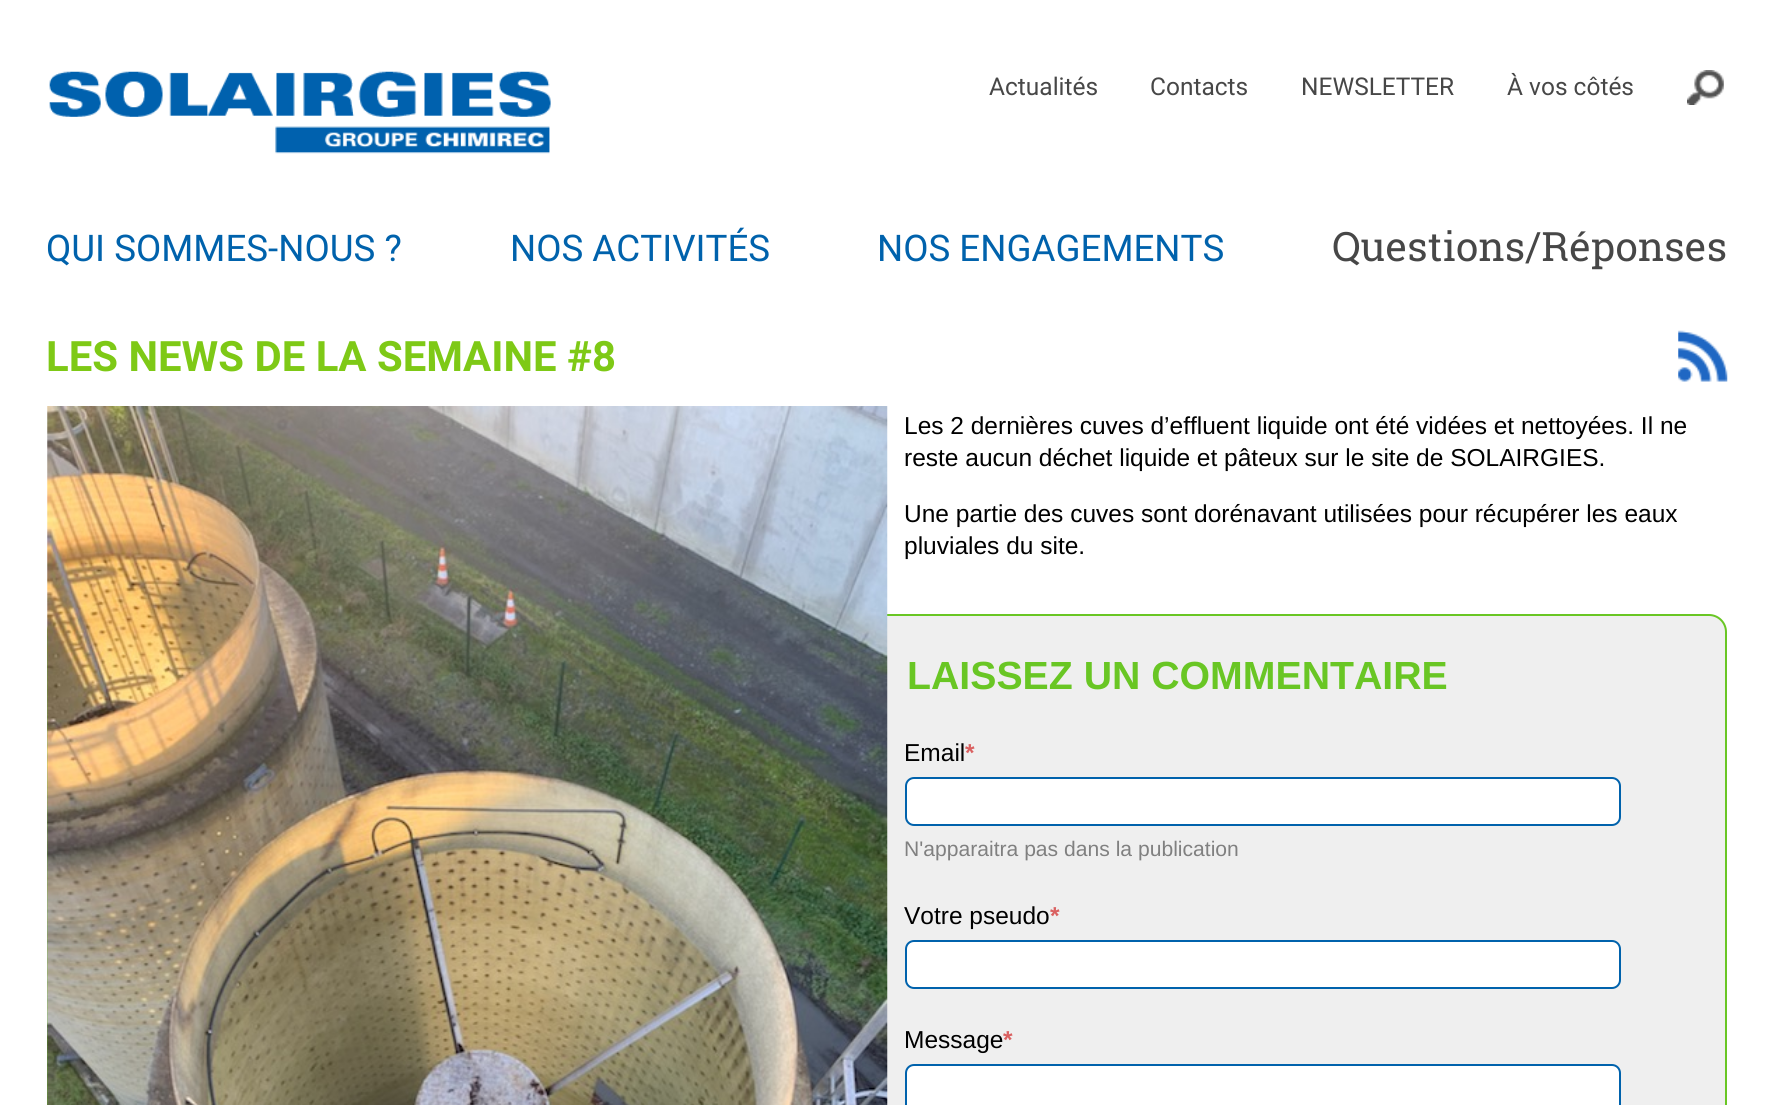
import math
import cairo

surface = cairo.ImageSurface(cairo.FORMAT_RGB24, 1772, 1105)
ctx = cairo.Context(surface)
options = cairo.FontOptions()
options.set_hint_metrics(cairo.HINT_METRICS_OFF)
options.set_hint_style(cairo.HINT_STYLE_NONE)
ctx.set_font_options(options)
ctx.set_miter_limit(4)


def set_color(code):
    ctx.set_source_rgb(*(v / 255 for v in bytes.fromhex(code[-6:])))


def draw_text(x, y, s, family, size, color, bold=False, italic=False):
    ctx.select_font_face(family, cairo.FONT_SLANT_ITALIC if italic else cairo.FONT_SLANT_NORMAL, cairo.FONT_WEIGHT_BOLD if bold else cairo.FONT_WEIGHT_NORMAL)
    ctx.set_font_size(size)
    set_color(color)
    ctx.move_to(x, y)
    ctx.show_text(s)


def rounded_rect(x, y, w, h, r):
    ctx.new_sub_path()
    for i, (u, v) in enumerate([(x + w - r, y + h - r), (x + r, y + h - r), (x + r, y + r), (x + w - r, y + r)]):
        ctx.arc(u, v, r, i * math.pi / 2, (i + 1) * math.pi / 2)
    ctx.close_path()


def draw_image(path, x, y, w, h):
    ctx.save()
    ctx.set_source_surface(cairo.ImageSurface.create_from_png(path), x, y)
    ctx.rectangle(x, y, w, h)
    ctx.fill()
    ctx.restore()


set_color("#ffffff")
ctx.paint()
draw_image("assets/img1.png", 49, 71, 502, 83)
draw_text(989, 95, "Actualités", "Roboto", 24.5, "#474747")
draw_text(1150, 95, "Contacts", "Roboto", 24.5, "#474747")
draw_text(1301, 95, "NEWSLETTER", "Roboto", 24.5, "#474747")
draw_text(1507, 95, "À vos côtés", "Roboto", 24.5, "#474747")
draw_image("assets/img2.png", 1687, 70, 37, 35)
draw_text(46, 261, "QUI SOMMES-NOUS ?", "Roboto", 36.75, "#0062ac")
draw_text(510, 261, "NOS ACTIVITÉS", "Roboto", 36.75, "#0062ac")
draw_text(877, 261, "NOS ENGAGEMENTS", "Roboto", 36.75, "#0062ac")
draw_text(1332, 261, "Questions/Réponses", "Roboto Slab", 40.5, "#474747")
draw_text(46, 371, "LES NEWS DE LA SEMAINE #8", "Roboto", 41.9, "#7ec916", bold=True)
draw_image("assets/img3.png", 1678, 330, 50, 52)
set_color("#efefef")
rounded_rect(48, 615, 1678, 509, 17)
ctx.fill_preserve()
set_color("#69c624")
ctx.stroke()
draw_image("assets/img4.png", 47, 406, 841, 699)
draw_text(904, 434, "Les 2 dernières cuves d’effluent liquide ont été vidées et nettoyées. Il ne", "Liberation Sans", 24.5, "#000000")
draw_text(904, 466, "reste aucun déchet liquide et pâteux sur le site de SOLAIRGIES.", "Liberation Sans", 24.5, "#000000")
draw_text(904, 522, "Une partie des cuves sont dorénavant utilisées pour récupérer les eaux", "Liberation Sans", 24.5, "#000000")
draw_text(904, 554, "pluviales du site.", "Liberation Sans", 24.5, "#000000")
draw_text(907, 689, "LAISSEZ UN COMMENTAIRE", "Liberation Sans", 39.25, "#69c624", bold=True)
draw_text(904, 761, "Email", "Liberation Sans", 24.5, "#000000")
draw_text(965, 761, "*", "Liberation Sans", 24.5, "#da6161", bold=True)
set_color("#ffffff")
rounded_rect(906, 778, 714, 47, 8)
ctx.fill_preserve()
set_color("#0062ac")
ctx.stroke()
draw_text(904, 856, "N'apparaitra pas dans la publication", "Liberation Sans", 21.1, "#808080")
draw_text(904, 924, "Votre pseudo", "Liberation Sans", 24.5, "#000000")
draw_text(1050, 924, "*", "Liberation Sans", 24.5, "#da6161", bold=True)
set_color("#ffffff")
rounded_rect(906, 941, 714, 47, 8)
ctx.fill_preserve()
set_color("#0062ac")
ctx.stroke()
draw_text(904, 1048, "Message", "Liberation Sans", 24.5, "#000000")
draw_text(1003, 1048, "*", "Liberation Sans", 24.5, "#da6161", bold=True)
set_color("#ffffff")
rounded_rect(906, 1065, 714, 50, 8)
ctx.fill_preserve()
set_color("#0062ac")
ctx.stroke()
surface.write_to_png("output.png")
